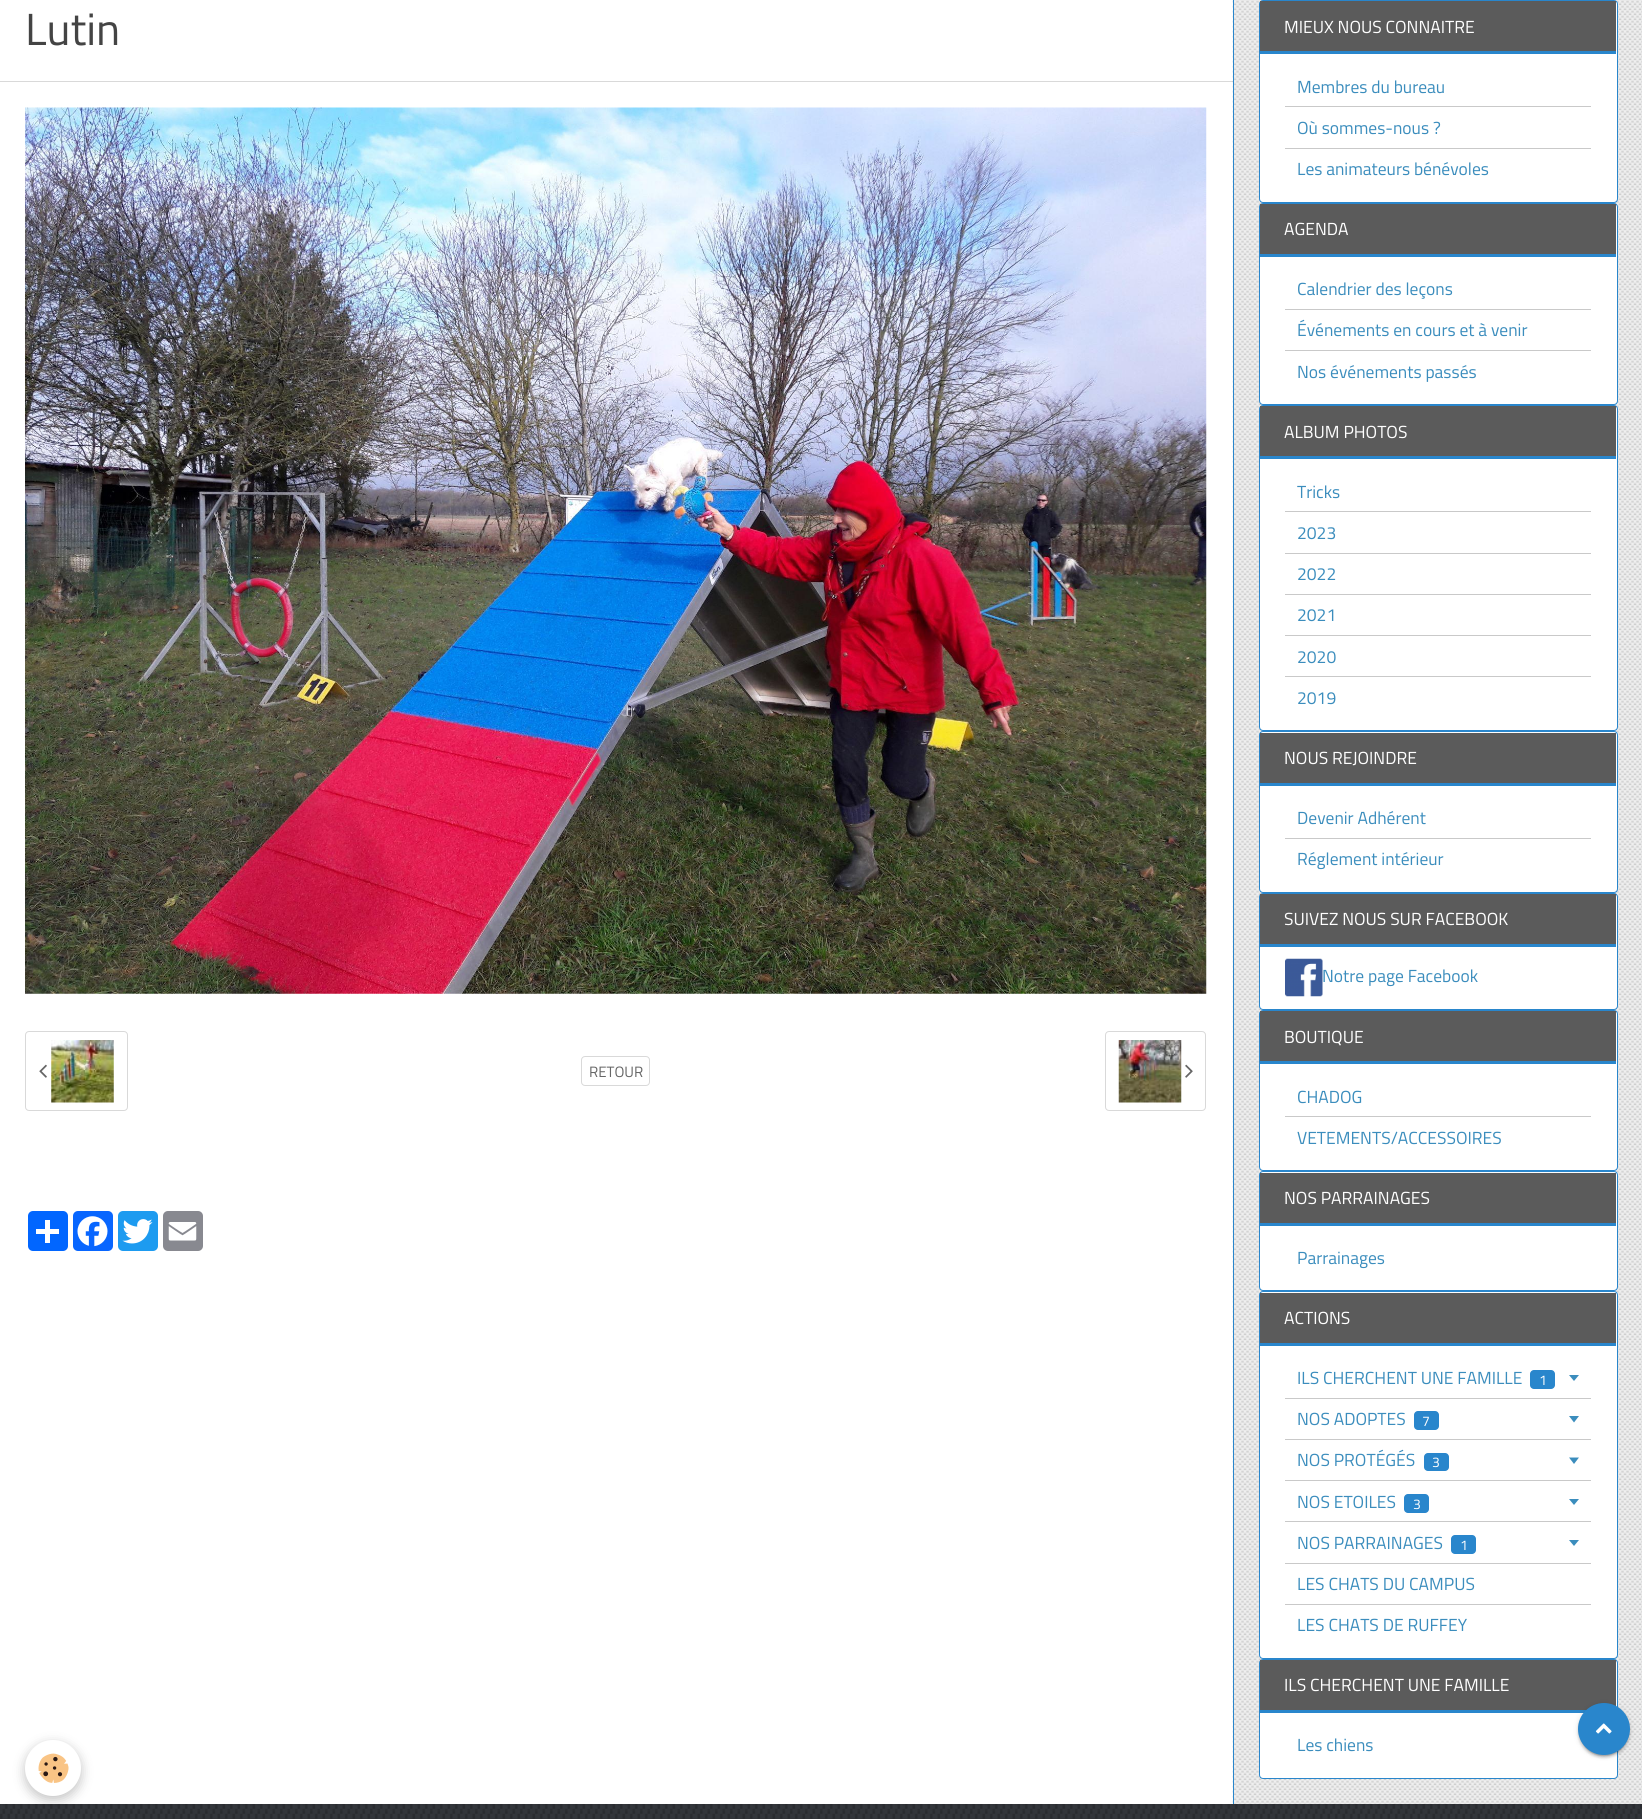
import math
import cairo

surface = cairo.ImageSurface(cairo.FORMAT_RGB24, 1642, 1819)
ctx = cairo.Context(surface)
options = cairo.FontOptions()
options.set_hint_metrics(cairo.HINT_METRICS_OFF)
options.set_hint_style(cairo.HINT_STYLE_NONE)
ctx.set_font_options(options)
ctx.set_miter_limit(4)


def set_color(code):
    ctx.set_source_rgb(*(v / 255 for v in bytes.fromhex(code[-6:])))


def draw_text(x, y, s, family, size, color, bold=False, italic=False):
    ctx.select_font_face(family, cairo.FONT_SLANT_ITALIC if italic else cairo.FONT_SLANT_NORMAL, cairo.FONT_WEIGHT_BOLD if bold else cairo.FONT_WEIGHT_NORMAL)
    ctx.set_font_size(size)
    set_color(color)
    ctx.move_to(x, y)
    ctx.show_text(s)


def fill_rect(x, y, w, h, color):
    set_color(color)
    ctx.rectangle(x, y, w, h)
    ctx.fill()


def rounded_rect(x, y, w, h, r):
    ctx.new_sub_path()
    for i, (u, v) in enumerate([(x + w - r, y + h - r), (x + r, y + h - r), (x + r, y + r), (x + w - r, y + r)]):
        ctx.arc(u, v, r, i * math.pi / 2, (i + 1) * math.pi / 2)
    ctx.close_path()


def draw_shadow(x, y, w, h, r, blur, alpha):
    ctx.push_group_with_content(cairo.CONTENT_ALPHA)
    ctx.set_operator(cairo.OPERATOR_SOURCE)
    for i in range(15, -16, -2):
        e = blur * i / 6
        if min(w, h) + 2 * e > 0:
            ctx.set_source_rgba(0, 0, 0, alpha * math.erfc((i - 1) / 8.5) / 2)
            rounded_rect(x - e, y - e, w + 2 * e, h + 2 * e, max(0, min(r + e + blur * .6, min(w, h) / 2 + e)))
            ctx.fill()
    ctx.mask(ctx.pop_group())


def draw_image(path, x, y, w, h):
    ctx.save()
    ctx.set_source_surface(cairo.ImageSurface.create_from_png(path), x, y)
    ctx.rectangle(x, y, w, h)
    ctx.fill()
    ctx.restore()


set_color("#ffffff")
ctx.paint()
fill_rect(0, 81, 1233, 1, "#d9d9d9")
draw_text(25, 45, "Lutin", "Titillium Web", 45, "#444444")
draw_image("assets/img1.png", 25, 107, 1182, 887)
rounded_rect(25.5, 1031.5, 102, 79, 3.5)
set_color("#d9d9d9")
ctx.set_line_width(1)
ctx.stroke()
draw_image("assets/img2.png", 39, 1064, 8, 14)
draw_image("assets/img3.png", 51, 1040, 63, 63)
rounded_rect(581.5, 1056.5, 68, 29, 3.5)
ctx.stroke()
draw_text(589, 1077, "RETOUR", "Titillium Web", 15, "#666666")
rounded_rect(1105.5, 1031.5, 100, 79, 3.5)
set_color("#d9d9d9")
ctx.stroke()
draw_image("assets/img4.png", 1118, 1040, 64, 63)
draw_image("assets/img5.png", 1185, 1064, 8, 14)
set_color("#0166ff")
rounded_rect(28, 1211, 40, 40, 5)
ctx.fill()
fill_rect(45, 1220, 5, 23, "#ffffff")
fill_rect(36, 1229, 23, 5, "#ffffff")
set_color("#0866ff")
rounded_rect(73, 1211, 40, 40, 5)
ctx.fill()
draw_image("assets/img6.png", 77, 1216, 31, 31)
set_color("#1d9bf0")
rounded_rect(118, 1211, 40, 40, 5)
ctx.fill()
draw_image("assets/img7.png", 122, 1219, 31, 25)
set_color("#888990")
rounded_rect(163, 1211, 40, 40, 5)
ctx.fill()
draw_image("assets/img8.png", 168, 1222, 29, 19)
fill_rect(1234, 0, 408, 1804, "#f0f0f0")
draw_image("assets/img9.png", 1232, 0, 410, 1804)
fill_rect(1233, 0, 1, 1804, "#2986cc")
set_color("#ffffff")
rounded_rect(1259.5, 0.5, 358, 202, 3.5)
ctx.fill_preserve()
set_color("#2986cc")
ctx.stroke()
fill_rect(1260, 1, 356, 50, "#5b5b5b")
fill_rect(1260, 51, 356, 3, "#2986cc")
draw_text(1284, 33, "MIEUX NOUS CONNAITRE", "Titillium Web", 17.5, "#ffffff")
fill_rect(1285, 106, 306, 1, "#c9c9c9")
draw_text(1297, 93, "Membres du bureau", "Titillium Web", 17.5, "#3b8dbd")
fill_rect(1285, 148, 306, 1, "#c9c9c9")
draw_text(1297, 134, "Où sommes-nous ?", "Titillium Web", 17.5, "#3b8dbd")
draw_text(1297, 175, "Les animateurs bénévoles", "Titillium Web", 17.5, "#3b8dbd")
set_color("#ffffff")
rounded_rect(1259.5, 203.5, 358, 201, 3.5)
ctx.fill_preserve()
set_color("#2986cc")
ctx.stroke()
fill_rect(1260, 204, 356, 50, "#5b5b5b")
fill_rect(1260, 254, 356, 3, "#2986cc")
draw_text(1284, 235, "AGENDA", "Titillium Web", 17.5, "#ffffff")
fill_rect(1285, 309, 306, 1, "#c9c9c9")
draw_text(1297, 295, "Calendrier des leçons", "Titillium Web", 17.5, "#3b8dbd")
fill_rect(1285, 350, 306, 1, "#c9c9c9")
draw_text(1297, 336, "Événements en cours et à venir", "Titillium Web", 17.5, "#3b8dbd")
draw_text(1297, 378, "Nos événements passés", "Titillium Web", 17.5, "#3b8dbd")
set_color("#ffffff")
rounded_rect(1259.5, 405.5, 358, 325, 3.5)
ctx.fill_preserve()
set_color("#2986cc")
ctx.stroke()
fill_rect(1260, 406, 356, 50, "#5b5b5b")
fill_rect(1260, 456, 356, 3, "#2986cc")
draw_text(1284, 438, "ALBUM PHOTOS", "Titillium Web", 17.5, "#ffffff")
fill_rect(1285, 511, 306, 1, "#c9c9c9")
draw_text(1297, 498, "Tricks", "Titillium Web", 17.5, "#3b8dbd")
fill_rect(1285, 553, 306, 1, "#c9c9c9")
draw_text(1297, 539, "2023", "Titillium Web", 17.5, "#3b8dbd")
fill_rect(1285, 594, 306, 1, "#c9c9c9")
draw_text(1297, 580, "2022", "Titillium Web", 17.5, "#3b8dbd")
fill_rect(1285, 635, 306, 1, "#c9c9c9")
draw_text(1297, 621, "2021", "Titillium Web", 17.5, "#3b8dbd")
fill_rect(1285, 676, 306, 1, "#c9c9c9")
draw_text(1297, 663, "2020", "Titillium Web", 17.5, "#3b8dbd")
draw_text(1297, 704, "2019", "Titillium Web", 17.5, "#3b8dbd")
set_color("#ffffff")
rounded_rect(1259.5, 731.5, 358, 161, 3.5)
ctx.fill_preserve()
set_color("#2986cc")
ctx.stroke()
fill_rect(1260, 733, 356, 50, "#5b5b5b")
fill_rect(1260, 783, 356, 3, "#2986cc")
draw_text(1284, 764, "NOUS REJOINDRE", "Titillium Web", 17.5, "#ffffff")
fill_rect(1285, 838, 306, 1, "#c9c9c9")
draw_text(1297, 824, "Devenir Adhérent", "Titillium Web", 17.5, "#3b8dbd")
draw_text(1297, 865, "Réglement intérieur", "Titillium Web", 17.5, "#3b8dbd")
set_color("#ffffff")
rounded_rect(1259.5, 893.5, 358, 116, 3.5)
ctx.fill_preserve()
set_color("#2986cc")
ctx.stroke()
fill_rect(1260, 894, 356, 50, "#5b5b5b")
fill_rect(1260, 944, 356, 3, "#2986cc")
draw_text(1284, 925, "SUIVEZ NOUS SUR FACEBOOK", "Titillium Web", 17.5, "#ffffff")
draw_image("assets/img10.png", 1285, 958, 38, 39)
draw_text(1322, 982, "Notre page Facebook", "Titillium Web", 17.5, "#3b8dbd")
set_color("#ffffff")
rounded_rect(1259.5, 1010.5, 358, 160, 3.5)
ctx.fill_preserve()
set_color("#2986cc")
ctx.stroke()
fill_rect(1260, 1011, 356, 50, "#5b5b5b")
fill_rect(1260, 1061, 356, 3, "#2986cc")
draw_text(1284, 1043, "BOUTIQUE", "Titillium Web", 17.5, "#ffffff")
fill_rect(1285, 1116, 306, 1, "#c9c9c9")
draw_text(1297, 1103, "CHADOG", "Titillium Web", 17.5, "#3b8dbd")
draw_text(1297, 1144, "VETEMENTS/ACCESSOIRES", "Titillium Web", 17.5, "#3b8dbd")
set_color("#ffffff")
rounded_rect(1259.5, 1171.5, 358, 119, 3.5)
ctx.fill_preserve()
set_color("#2986cc")
ctx.stroke()
fill_rect(1260, 1173, 356, 50, "#5b5b5b")
fill_rect(1260, 1223, 356, 3, "#2986cc")
draw_text(1284, 1204, "NOS PARRAINAGES", "Titillium Web", 17.5, "#ffffff")
draw_text(1297, 1264, "Parrainages", "Titillium Web", 17.5, "#3b8dbd")
set_color("#ffffff")
rounded_rect(1259.5, 1291.5, 358, 367, 3.5)
ctx.fill_preserve()
set_color("#2986cc")
ctx.stroke()
fill_rect(1260, 1293, 356, 50, "#5b5b5b")
fill_rect(1260, 1343, 356, 3, "#2986cc")
draw_text(1284, 1324, "ACTIONS", "Titillium Web", 17.5, "#ffffff")
fill_rect(1285, 1398, 306, 1, "#c9c9c9")
draw_text(1297, 1384, "ILS CHERCHENT UNE FAMILLE", "Titillium Web", 17.5, "#3b8dbd")
set_color("#2986cc")
rounded_rect(1530, 1370, 25, 19, 4)
ctx.fill()
draw_text(1539, 1385, "1", "Titillium Web", 14, "#ffffff")
set_color("#3b8dbd")
ctx.new_path()
ctx.move_to(1569, 1375)
ctx.line_to(1579, 1375)
ctx.line_to(1574, 1381)
ctx.close_path()
ctx.fill()
fill_rect(1285, 1439, 306, 1, "#c9c9c9")
draw_text(1297, 1425, "NOS ADOPTES", "Titillium Web", 17.5, "#3b8dbd")
set_color("#2986cc")
rounded_rect(1414, 1411, 25, 19, 4)
ctx.fill()
draw_text(1422, 1426, "7", "Titillium Web", 14, "#ffffff")
set_color("#3b8dbd")
ctx.new_path()
ctx.move_to(1569, 1416)
ctx.line_to(1579, 1416)
ctx.line_to(1574, 1422.5)
ctx.close_path()
ctx.fill()
fill_rect(1285, 1480, 306, 1, "#c9c9c9")
draw_text(1297, 1466, "NOS PROTÉGÉS", "Titillium Web", 17.5, "#3b8dbd")
set_color("#2986cc")
rounded_rect(1424, 1453, 25, 18, 4)
ctx.fill()
draw_text(1432, 1467, "3", "Titillium Web", 14, "#ffffff")
set_color("#3b8dbd")
ctx.new_path()
ctx.move_to(1569, 1457.5)
ctx.line_to(1579, 1457.5)
ctx.line_to(1574, 1464)
ctx.close_path()
ctx.fill()
fill_rect(1285, 1521, 306, 1, "#c9c9c9")
draw_text(1297, 1508, "NOS ETOILES", "Titillium Web", 17.5, "#3b8dbd")
set_color("#2986cc")
rounded_rect(1404, 1494, 25, 19, 4)
ctx.fill()
draw_text(1413, 1509, "3", "Titillium Web", 14, "#ffffff")
set_color("#3b8dbd")
ctx.new_path()
ctx.move_to(1569, 1499)
ctx.line_to(1579, 1499)
ctx.line_to(1574, 1505)
ctx.close_path()
ctx.fill()
fill_rect(1285, 1563, 306, 1, "#c9c9c9")
draw_text(1297, 1549, "NOS PARRAINAGES", "Titillium Web", 17.5, "#3b8dbd")
set_color("#2986cc")
rounded_rect(1451, 1535, 25, 19, 4)
ctx.fill()
draw_text(1460, 1550, "1", "Titillium Web", 14, "#ffffff")
set_color("#3b8dbd")
ctx.new_path()
ctx.move_to(1569, 1540)
ctx.line_to(1579, 1540)
ctx.line_to(1574, 1546)
ctx.close_path()
ctx.fill()
fill_rect(1285, 1604, 306, 1, "#c9c9c9")
draw_text(1297, 1590, "LES CHATS DU CAMPUS", "Titillium Web", 17.5, "#3b8dbd")
draw_text(1297, 1631, "LES CHATS DE RUFFEY", "Titillium Web", 17.5, "#3b8dbd")
set_color("#ffffff")
rounded_rect(1259.5, 1659.5, 358, 119, 3.5)
ctx.fill_preserve()
set_color("#2986cc")
ctx.stroke()
fill_rect(1260, 1660, 356, 50, "#5b5b5b")
fill_rect(1260, 1710, 327, 3, "#2986cc")
draw_text(1284, 1691, "ILS CHERCHENT UNE FAMILLE", "Titillium Web", 17.5, "#ffffff")
draw_text(1297, 1751, "Les chiens", "Titillium Web", 17.5, "#3b8dbd")
set_color("#000000")
draw_shadow(1578, 1704, 52, 52, 26, 3, 0.12)
draw_shadow(1580, 1709, 48, 47, 23.5, 0.5, 0.2)
draw_shadow(1578, 1705, 52, 53, 26, 1, 0.14)
set_color("#2986cc")
ctx.arc(1604, 1729, 26, 0, 2 * math.pi)
ctx.fill()
draw_image("assets/img11.png", 1595, 1723, 17, 11)
fill_rect(0, 1804, 1642, 15, "#33363b")
draw_image("assets/img13.png", 0, 1804, 1642, 15)
set_color("#000000")
draw_shadow(25, 1744, 56, 56, 28, 6, 0.24)
set_color("#ffffff")
ctx.arc(53, 1768, 28, 0, 2 * math.pi)
ctx.fill()
draw_image("assets/img12.png", 38, 1753, 31, 30)
surface.write_to_png("output.png")
